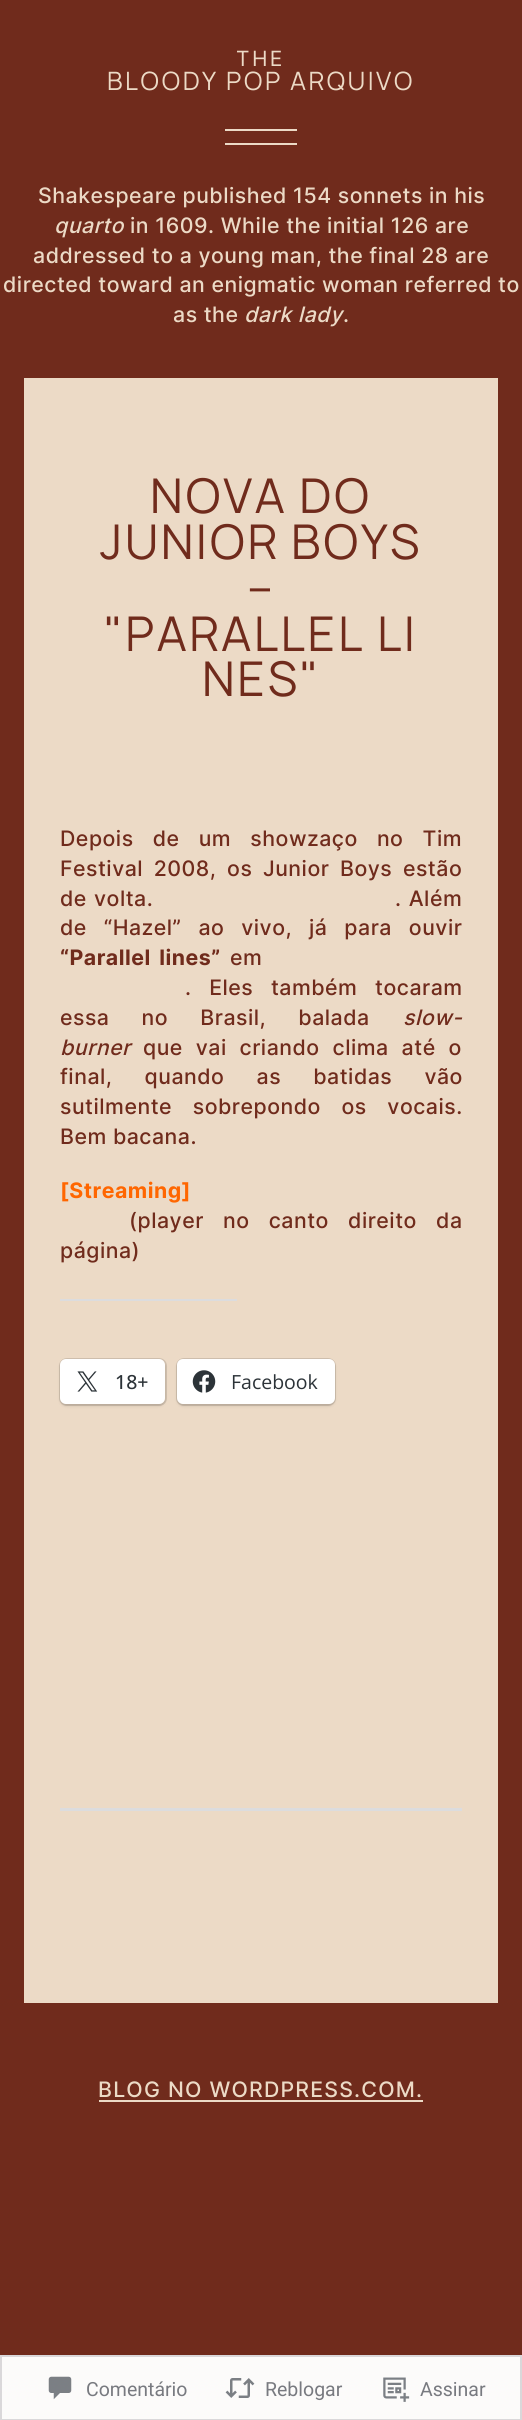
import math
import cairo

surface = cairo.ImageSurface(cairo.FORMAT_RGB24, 522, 2420)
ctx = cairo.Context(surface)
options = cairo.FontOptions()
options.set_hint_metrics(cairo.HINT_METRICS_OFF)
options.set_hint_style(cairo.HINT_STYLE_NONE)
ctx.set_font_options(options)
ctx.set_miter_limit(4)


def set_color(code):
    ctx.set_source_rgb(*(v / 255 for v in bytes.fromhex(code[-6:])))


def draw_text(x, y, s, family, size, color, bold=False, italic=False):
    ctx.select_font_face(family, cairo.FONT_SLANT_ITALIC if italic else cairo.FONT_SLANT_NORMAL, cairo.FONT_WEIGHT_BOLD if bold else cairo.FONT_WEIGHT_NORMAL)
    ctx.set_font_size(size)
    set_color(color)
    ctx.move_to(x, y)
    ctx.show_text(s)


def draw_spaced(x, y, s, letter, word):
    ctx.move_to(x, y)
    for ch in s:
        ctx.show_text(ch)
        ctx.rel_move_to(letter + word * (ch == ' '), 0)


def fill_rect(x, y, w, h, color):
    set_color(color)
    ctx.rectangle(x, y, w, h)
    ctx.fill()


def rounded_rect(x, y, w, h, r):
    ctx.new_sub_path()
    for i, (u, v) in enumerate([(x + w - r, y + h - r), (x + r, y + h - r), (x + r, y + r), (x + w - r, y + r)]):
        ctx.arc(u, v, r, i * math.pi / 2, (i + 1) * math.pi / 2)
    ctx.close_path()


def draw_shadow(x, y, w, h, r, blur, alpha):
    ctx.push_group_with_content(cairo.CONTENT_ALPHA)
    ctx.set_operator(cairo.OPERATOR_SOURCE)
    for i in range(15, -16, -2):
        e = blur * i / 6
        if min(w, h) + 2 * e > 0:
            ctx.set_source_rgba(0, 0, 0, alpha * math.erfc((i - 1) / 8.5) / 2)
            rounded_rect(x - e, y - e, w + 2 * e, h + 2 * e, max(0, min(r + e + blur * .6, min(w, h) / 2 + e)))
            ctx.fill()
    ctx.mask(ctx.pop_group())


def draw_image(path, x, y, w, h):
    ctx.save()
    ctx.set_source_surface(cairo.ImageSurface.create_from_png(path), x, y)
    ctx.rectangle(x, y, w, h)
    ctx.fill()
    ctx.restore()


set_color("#702b1c")
ctx.paint()
ctx.select_font_face("Inter")
ctx.set_font_size(21)
set_color("#ecdac6")
draw_spaced(236, 66, "THE", 2.4, 0)
ctx.select_font_face("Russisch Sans")
ctx.set_font_size(24.3)
draw_spaced(107, 90, "BLOODY POP ARQUIVO", 2.4, 0)
fill_rect(225, 129, 72, 2, "#ecdac6")
fill_rect(225, 143, 72, 2, "#ecdac6")
ctx.select_font_face("Inter Medium")
ctx.set_font_size(21.3)
draw_spaced(38, 203, "Shakespeare published 154 sonnets in his", 0.5, 0)
ctx.select_font_face("Inter Medium", cairo.FONT_SLANT_ITALIC)
draw_spaced(54, 233, "quarto", 0.5, 0)
ctx.select_font_face("Inter Medium")
draw_spaced(130, 233, "in 1609. While the initial 126 are", 0.5, 0)
draw_spaced(33, 263, "addressed to a young man, the final 28 are", 0.5, 0)
draw_spaced(3, 292, "directed toward an enigmatic woman referred to", 0.5, 0)
draw_spaced(173, 322, "as the", 0.5, 0)
ctx.select_font_face("Inter Medium", cairo.FONT_SLANT_ITALIC)
draw_spaced(244, 322, "dark lady", 0.5, 0)
ctx.select_font_face("Inter Medium")
draw_spaced(343, 322, ".", 0.5, 0)
fill_rect(24, 378, 474, 1625, "#ecdac6")
ctx.select_font_face("Russisch Sans")
ctx.set_font_size(46)
set_color("#702b1c")
draw_spaced(150, 513, "NOVA DO", 2.4, 0)
draw_spaced(100, 559, "JUNIOR BOYS", 2.4, 0)
draw_spaced(247, 605, "–", 2.4, 0)
draw_spaced(104, 651, "\"PARALLEL LI", 2.4, 0)
draw_spaced(202, 696, "NES\"", 2.4, 0)
ctx.select_font_face("Inter Medium")
ctx.set_font_size(21.3)
draw_spaced(60, 846, "Depois de um showzaço no Tim", 0.5, 13)
draw_spaced(60, 876, "Festival 2008, os Junior Boys estão", 0.5, 4.5)
draw_spaced(60, 906, "de volta.", 0.5, 1)
draw_spaced(395, 906, ". Além", 0.5, 1)
draw_spaced(60, 935, "de “Hazel” ao vivo, já para ouvir", 0.5, 10.75)
ctx.select_font_face("Inter", cairo.FONT_SLANT_NORMAL, cairo.FONT_WEIGHT_BOLD)
draw_spaced(60, 965, "“Parallel lines”", 0.5, 3)
ctx.select_font_face("Inter Medium")
draw_spaced(230, 965, "em", 0.5, 0)
draw_spaced(185, 995, ". Eles também tocaram", 0.5, 11.5)
draw_spaced(60, 1025, "essa no Brasil, balada", 0.5, 26)
ctx.select_font_face("Inter Medium", cairo.FONT_SLANT_ITALIC)
draw_spaced(403, 1025, "slow-", 0.5, 0)
draw_spaced(60, 1055, "burner", 0.5, 0)
ctx.select_font_face("Inter Medium")
draw_spaced(143, 1055, "que vai criando clima até o", 0.5, 6.75)
draw_spaced(60, 1084, "final, quando as batidas vão", 0.5, 26)
draw_spaced(60, 1114, "sutilmente sobrepondo os vocais.", 0.5, 14.5)
draw_spaced(60, 1144, "Bem bacana.", 0.5, 0)
ctx.select_font_face("Inter", cairo.FONT_SLANT_NORMAL, cairo.FONT_WEIGHT_BOLD)
set_color("#ff6600")
draw_spaced(60, 1198, "[Streaming]", 0.5, 0)
ctx.select_font_face("Inter Medium")
set_color("#702b1c")
draw_spaced(129, 1228, "(player no canto direito da", 0.5, 13)
draw_spaced(60, 1258, "página)", 0.5, 0)
fill_rect(60, 1299, 177, 2, "#dcdcde")
rounded_rect(60, 1359, 106, 46, 7)
set_color("#d0c0ae")
ctx.stroke()
set_color("#000000")
draw_shadow(60, 1361, 105, 45, 6, 1.5, 0.12)
set_color("#ffffff")
rounded_rect(60, 1359, 105, 45, 6)
ctx.fill()
draw_image("assets/img1.png", 77, 1371, 21, 21)
draw_text(115, 1389, "18+", "Open Sans Medium", 19.5, "#2c3338")
rounded_rect(177, 1359, 158, 46, 7)
set_color("#d0c0ae")
ctx.stroke()
set_color("#000000")
draw_shadow(177, 1361, 158, 45, 6, 1.5, 0.12)
set_color("#ffffff")
rounded_rect(177, 1359, 158, 45, 6)
ctx.fill()
draw_image("assets/img2.png", 192, 1370, 24, 23)
draw_text(231, 1389, "Facebook", "Open Sans", 19.5, "#2c3338")
fill_rect(60, 1808, 402, 3, "#dcdcde")
ctx.select_font_face("Inter Medium")
ctx.set_font_size(21.3)
set_color("#ecdac6")
draw_spaced(98, 2097, "BLOG NO WORDPRESS.COM.", 1.2, 0)
fill_rect(99, 2100, 324, 2, "#ecdac6")
set_color("#fcfbfa")
ctx.rectangle(1, 2356, 520, 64)
ctx.fill_preserve()
set_color("#dad8da")
ctx.stroke()
draw_image("assets/img3.png", 48, 2376, 24, 24)
draw_text(86, 2396, "Comentário", "Roboto", 19.5, "#787a80")
draw_image("assets/img4.png", 225, 2378, 30, 20)
draw_text(265, 2396, "Reblogar", "Roboto", 19.5, "#787a80")
draw_image("assets/img5.png", 383, 2377, 27, 25)
draw_text(420, 2396, "Assinar", "Roboto", 19.5, "#787a80")
surface.write_to_png("output.png")
